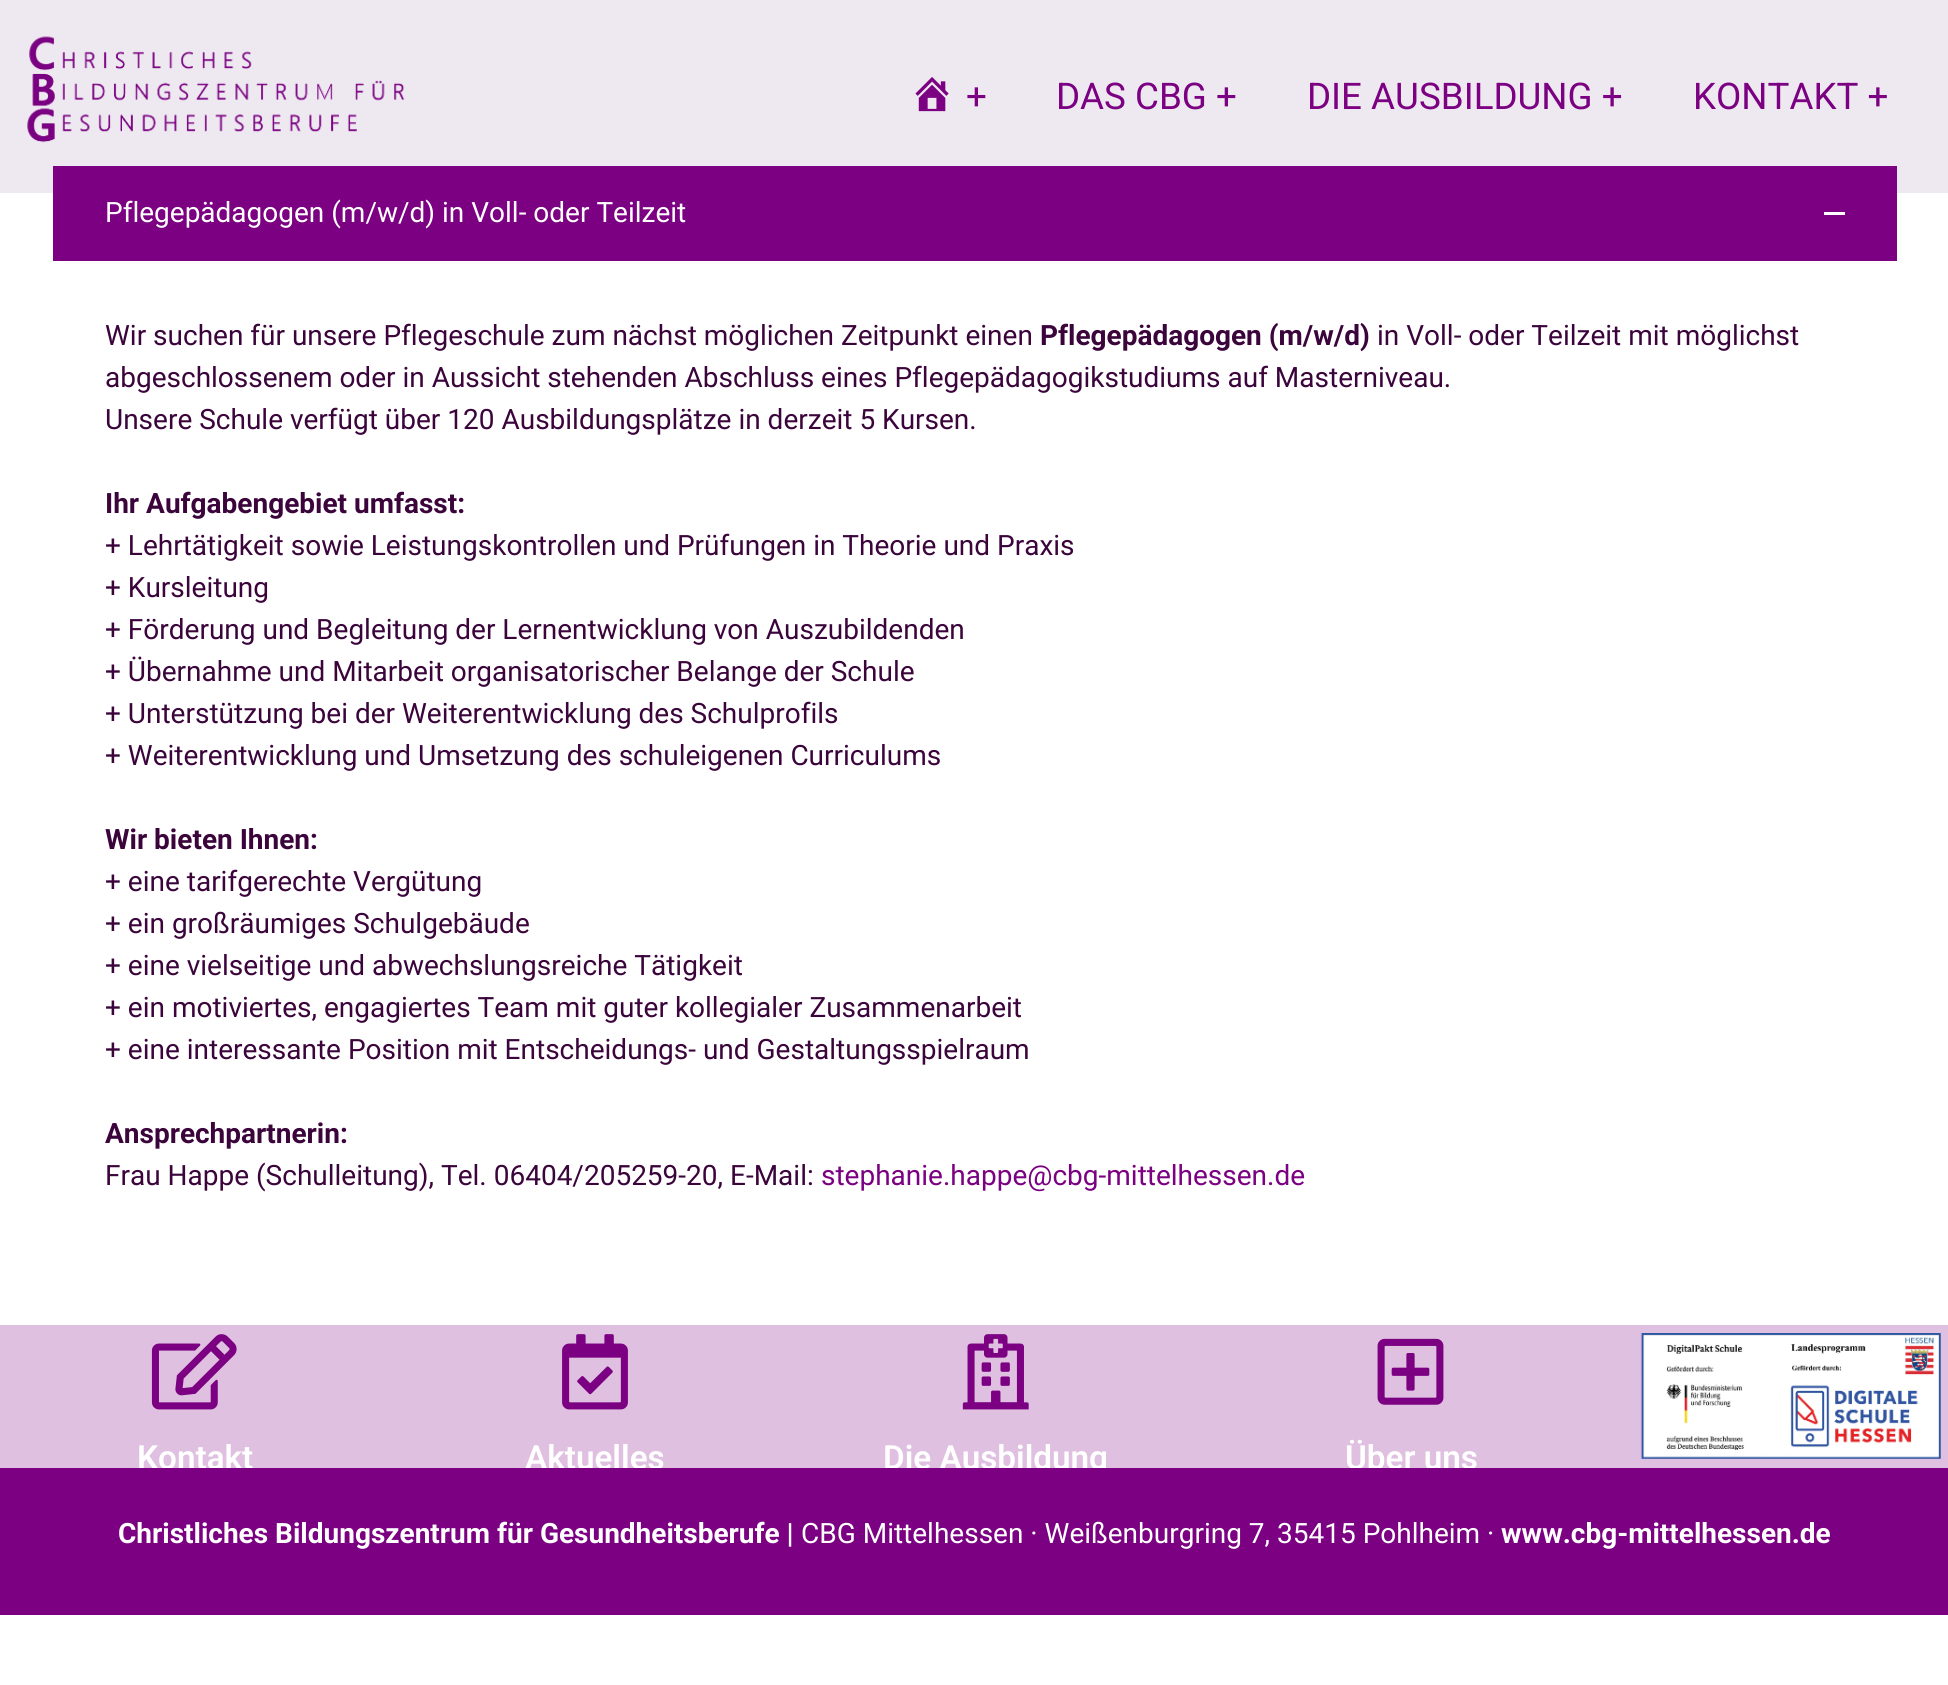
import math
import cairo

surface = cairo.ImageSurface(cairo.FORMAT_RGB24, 1948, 1685)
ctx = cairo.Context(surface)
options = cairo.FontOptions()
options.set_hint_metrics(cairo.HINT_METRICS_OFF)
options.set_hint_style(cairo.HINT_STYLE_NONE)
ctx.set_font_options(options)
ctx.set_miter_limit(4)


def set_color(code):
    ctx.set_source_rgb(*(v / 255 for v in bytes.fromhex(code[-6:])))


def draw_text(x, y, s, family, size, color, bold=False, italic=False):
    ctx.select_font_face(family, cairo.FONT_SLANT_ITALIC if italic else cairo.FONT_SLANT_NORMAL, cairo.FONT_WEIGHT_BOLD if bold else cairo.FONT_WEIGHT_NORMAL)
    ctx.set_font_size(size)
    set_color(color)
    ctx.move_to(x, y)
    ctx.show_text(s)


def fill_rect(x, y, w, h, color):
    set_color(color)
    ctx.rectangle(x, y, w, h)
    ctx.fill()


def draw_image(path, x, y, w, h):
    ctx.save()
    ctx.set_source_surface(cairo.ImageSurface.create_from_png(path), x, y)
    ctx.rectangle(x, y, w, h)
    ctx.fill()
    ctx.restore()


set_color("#ffffff")
ctx.paint()
fill_rect(0, 0, 1948, 193, "#eee9f0")
draw_image("assets/img1.png", 27, 36, 378, 107)
draw_image("assets/img2.png", 915, 77, 34, 35)
draw_text(966, 109, "+", "Roboto", 36.75, "#7b0082")
draw_text(1056, 109, "DAS CBG +", "Roboto", 36.75, "#7b0082")
draw_text(1307, 109, "DIE AUSBILDUNG +", "Roboto", 36.75, "#7b0082")
draw_text(1693, 109, "KONTAKT +", "Roboto", 36.75, "#7b0082")
fill_rect(53, 166, 1844, 95, "#7b0082")
draw_text(105, 222, "Pflegepädagogen (m/w/d) in Voll- oder Teilzeit", "Roboto", 28, "#ffffff")
fill_rect(1824, 212, 21, 3, "#ffffff")
draw_text(105, 345, "Wir suchen für unsere Pflegeschule zum nächst möglichen Zeitpunkt einen", "Roboto", 28, "#3b053c")
draw_text(1040, 345, "Pflegepädagogen (m/w/d)", "Roboto", 28, "#3b053c", bold=True)
draw_text(1377, 345, "in Voll- oder Teilzeit mit möglichst", "Roboto", 28, "#3b053c")
draw_text(105, 387, "abgeschlossenem oder in Aussicht stehenden Abschluss eines Pflegepädagogikstudiums auf Masterniveau.", "Roboto", 28, "#3b053c")
draw_text(105, 429, "Unsere Schule verfügt über 120 Ausbildungsplätze in derzeit 5 Kursen.", "Roboto", 28, "#3b053c")
draw_text(105, 513, "Ihr Aufgabengebiet umfasst:", "Roboto", 28, "#3b053c", bold=True)
draw_text(105, 555, "+ Lehrtätigkeit sowie Leistungskontrollen und Prüfungen in Theorie und Praxis", "Roboto", 28, "#3b053c")
draw_text(105, 597, "+ Kursleitung", "Roboto", 28, "#3b053c")
draw_text(105, 639, "+ Förderung und Begleitung der Lernentwicklung von Auszubildenden", "Roboto", 28, "#3b053c")
draw_text(105, 681, "+ Übernahme und Mitarbeit organisatorischer Belange der Schule", "Roboto", 28, "#3b053c")
draw_text(105, 723, "+ Unterstützung bei der Weiterentwicklung des Schulprofils", "Roboto", 28, "#3b053c")
draw_text(105, 765, "+ Weiterentwicklung und Umsetzung des schuleigenen Curriculums", "Roboto", 28, "#3b053c")
draw_text(105, 849, "Wir bieten Ihnen:", "Roboto", 28, "#3b053c", bold=True)
draw_text(105, 891, "+ eine tarifgerechte Vergütung", "Roboto", 28, "#3b053c")
draw_text(105, 933, "+ ein großräumiges Schulgebäude", "Roboto", 28, "#3b053c")
draw_text(105, 975, "+ eine vielseitige und abwechslungsreiche Tätigkeit", "Roboto", 28, "#3b053c")
draw_text(105, 1017, "+ ein motiviertes, engagiertes Team mit guter kollegialer Zusammenarbeit", "Roboto", 28, "#3b053c")
draw_text(105, 1059, "+ eine interessante Position mit Entscheidungs- und Gestaltungsspielraum", "Roboto", 28, "#3b053c")
draw_text(105, 1143, "Ansprechpartnerin:", "Roboto", 28, "#3b053c", bold=True)
draw_text(105, 1185, "Frau Happe (Schulleitung), Tel. 06404/205259-20, E-Mail:", "Roboto", 28, "#3b053c")
draw_text(821, 1185, "stephanie.happe@cbg-mittelhessen.de", "Roboto", 28, "#7b0082")
fill_rect(0, 1325, 1948, 143, "#dfc0e0")
draw_image("assets/img3.png", 151, 1334, 86, 76)
draw_text(137, 1469, "Kontakt", "Roboto SemiBold", 33.25, "#ffffff")
draw_image("assets/img4.png", 562, 1334, 66, 76)
draw_text(525, 1469, "Aktuelles", "Roboto SemiBold", 33.25, "#ffffff")
draw_image("assets/img5.png", 962, 1334, 67, 76)
draw_text(883, 1469, "Die Ausbildung", "Roboto SemiBold", 33.25, "#ffffff")
draw_image("assets/img6.png", 1377, 1338, 67, 67)
draw_text(1345, 1469, "Über uns", "Roboto SemiBold", 33.25, "#ffffff")
draw_image("assets/img7.png", 1640, 1333, 301, 126)
fill_rect(0, 1468, 1948, 147, "#7b0082")
draw_text(118, 1543, "Christliches Bildungszentrum für Gesundheitsberufe |", "Roboto", 28, "#ffffff", bold=True)
draw_text(801, 1543, "CBG Mittelhessen · Weißenburgring 7, 35415 Pohlheim ·", "Roboto", 28, "#ffffff")
draw_text(1501, 1543, "www.cbg-mittelhessen.de", "Roboto", 28, "#ffffff", bold=True)
surface.write_to_png("output.png")
